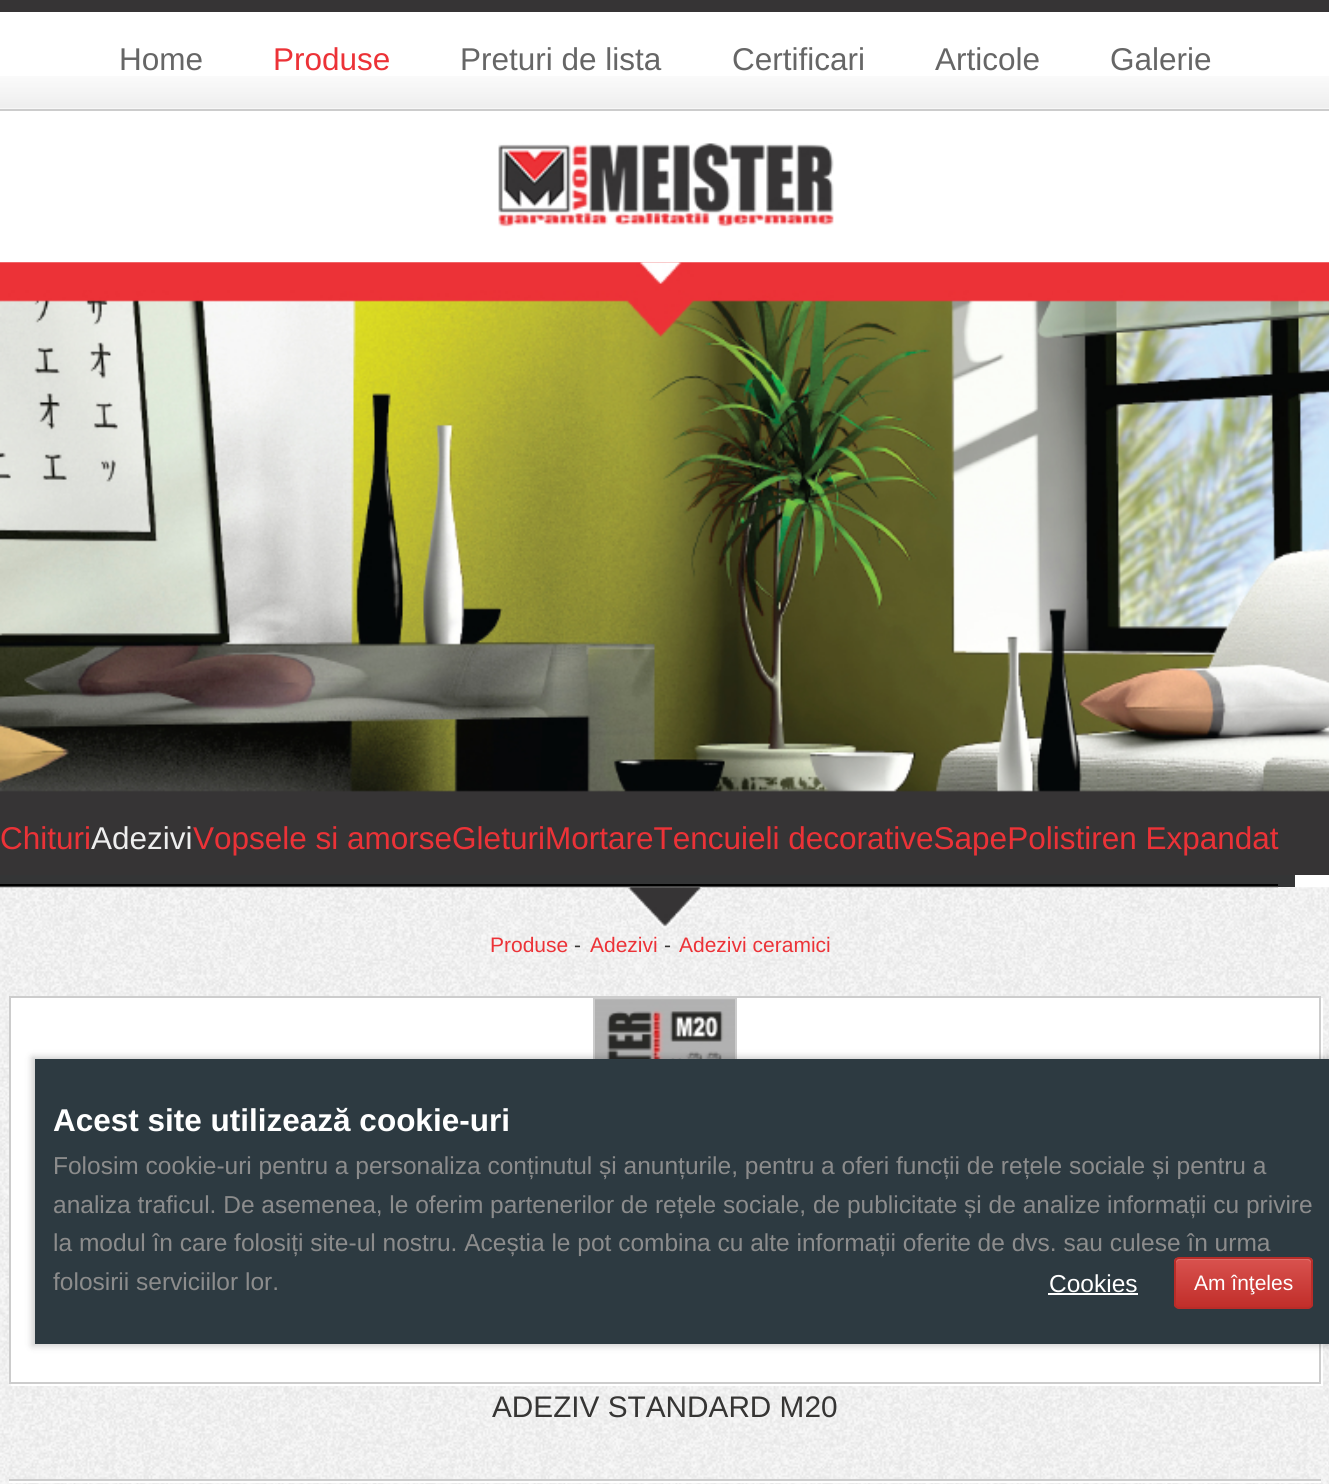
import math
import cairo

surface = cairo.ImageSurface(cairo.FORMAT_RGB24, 1329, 1484)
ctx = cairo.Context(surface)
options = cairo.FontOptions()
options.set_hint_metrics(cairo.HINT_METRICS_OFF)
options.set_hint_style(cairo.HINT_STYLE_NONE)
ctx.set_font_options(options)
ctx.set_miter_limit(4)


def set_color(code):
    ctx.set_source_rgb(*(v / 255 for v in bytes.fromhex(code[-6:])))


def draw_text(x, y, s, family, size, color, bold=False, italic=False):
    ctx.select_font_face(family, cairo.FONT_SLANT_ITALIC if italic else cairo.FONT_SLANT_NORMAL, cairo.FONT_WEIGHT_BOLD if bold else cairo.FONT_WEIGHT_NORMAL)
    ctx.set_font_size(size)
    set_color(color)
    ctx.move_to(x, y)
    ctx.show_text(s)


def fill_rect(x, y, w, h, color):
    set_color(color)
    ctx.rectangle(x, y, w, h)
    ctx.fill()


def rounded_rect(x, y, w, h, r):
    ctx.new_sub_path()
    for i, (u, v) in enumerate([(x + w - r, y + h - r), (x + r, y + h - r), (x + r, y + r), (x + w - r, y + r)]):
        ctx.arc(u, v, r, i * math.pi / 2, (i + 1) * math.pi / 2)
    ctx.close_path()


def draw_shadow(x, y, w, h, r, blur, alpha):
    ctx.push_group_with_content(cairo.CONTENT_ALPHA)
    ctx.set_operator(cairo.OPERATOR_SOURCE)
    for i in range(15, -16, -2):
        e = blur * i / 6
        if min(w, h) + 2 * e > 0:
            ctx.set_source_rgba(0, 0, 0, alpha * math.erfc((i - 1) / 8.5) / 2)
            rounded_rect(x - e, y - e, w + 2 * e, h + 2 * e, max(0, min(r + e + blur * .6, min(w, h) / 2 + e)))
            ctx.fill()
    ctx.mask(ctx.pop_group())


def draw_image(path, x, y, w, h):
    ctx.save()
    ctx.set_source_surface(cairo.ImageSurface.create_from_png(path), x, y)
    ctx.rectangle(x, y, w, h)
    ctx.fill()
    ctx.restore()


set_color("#ffffff")
ctx.paint()
draw_image("assets/img1.png", 0, 76, 1329, 33)
fill_rect(0, 0, 1329, 12, "#363435")
fill_rect(0, 109, 1329, 2, "#cccccc")
draw_text(119, 70, "Home", "Liberation Sans", 31.5, "#666666")
draw_text(273, 70, "Produse", "Liberation Sans", 31.5, "#ec3237")
draw_text(460, 70, "Preturi de lista", "Liberation Sans", 31.5, "#666666")
draw_text(732, 70, "Certificari", "Liberation Sans", 31.5, "#666666")
draw_text(935, 70, "Articole", "Liberation Sans", 31.5, "#666666")
draw_text(1110, 70, "Galerie", "Liberation Sans", 31.5, "#666666")
draw_image("assets/img2.png", 498, 143, 336, 84)
draw_image("assets/img3.png", 0, 262, 1329, 613)
draw_image("assets/img4.png", 0, 262, 1329, 530)
fill_rect(0, 875, 1295, 12, "#343536")
fill_rect(0, 886, 1278, 2, "#444444")
fill_rect(0, 884, 1278, 2, "#000000")
draw_text(0, 849, "Chituri", "Liberation Sans", 31.5, "#ec3237")
draw_text(91, 849, "Adezivi", "Liberation Sans", 31.5, "#eeeeee")
draw_text(193, 849, "Vopsele si amorseGleturiMortareTencuieli decorativeSapePolistiren Expandat", "Liberation Sans", 31.5, "#ec3237")
draw_image("assets/img5.png", 0, 887, 1329, 597)
draw_image("assets/img6.png", 628, 887, 74, 41)
draw_text(490, 952, "Produse", "Liberation Sans", 21, "#ec3237")
draw_text(574, 952, "-", "Liberation Sans", 21, "#363534")
draw_text(590, 952, "Adezivi", "Liberation Sans", 21, "#ec3237")
draw_text(664, 952, "-", "Liberation Sans", 21, "#363534")
draw_text(679, 952, "Adezivi ceramici", "Liberation Sans", 21, "#ec3237")
fill_rect(9, 1481, 1312, 2, "#ffffff")
ctx.new_path()
ctx.move_to(11, 1384)
ctx.line_to(11, 1386)
ctx.line_to(1323, 1386)
ctx.line_to(1323, 998)
ctx.line_to(1321, 998)
ctx.line_to(1321, 1384)
ctx.close_path()
ctx.fill()
ctx.rectangle(10, 997, 1310, 386)
ctx.fill_preserve()
set_color("#cccccc")
ctx.stroke()
ctx.rectangle(594, 999, 142, 229)
ctx.stroke()
draw_image("assets/img7.png", 595, 999, 140, 60)
fill_rect(9, 1479, 1312, 2, "#cccccc")
draw_text(492, 1417, "ADEZIV STANDARD M20", "Liberation Sans", 29.75, "#363534")
set_color("#000000")
draw_shadow(32, 1057, 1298, 289, 0, 3.5, 0.2)
fill_rect(35, 1059, 1294, 285, "#2d3a41")
draw_text(53, 1131, "Acest site utilizează cookie-uri", "Liberation Sans", 31.5, "#ffffff", bold=True)
draw_text(53, 1174, "Folosim cookie-uri pentru a personaliza conținutul și anunțurile, pentru a oferi funcții de rețele sociale și pentru a", "Liberation Sans", 24.5, "#8c8c8c")
draw_text(53, 1213, "analiza traficul. De asemenea, le oferim partenerilor de rețele sociale, de publicitate și de analize informații cu privire", "Liberation Sans", 24.5, "#8c8c8c")
draw_text(53, 1251, "la modul în care folosiți site-ul nostru. Aceștia le pot combina cu alte informații oferite de dvs. sau culese în urma", "Liberation Sans", 24.5, "#8c8c8c")
draw_text(53, 1290, "folosirii serviciilor lor.", "Liberation Sans", 24.5, "#8c8c8c")
draw_text(1049, 1292, "Cookies", "Liberation Sans", 24.5, "#ffffff")
fill_rect(1048, 1293, 90, 2, "#ffffff")
ctx.save()
rounded_rect(1174, 1257, 139, 52, 5)
ctx.clip()
gradient = cairo.LinearGradient(1243, 1258, 1243, 1307)
gradient.add_color_stop_rgba(0, 0.851, 0.325, 0.31, 1)
gradient.add_color_stop_rgba(1, 0.757, 0.18, 0.165, 1)
ctx.set_source(gradient)
ctx.rectangle(1174, 1258, 139, 49)
ctx.fill()
ctx.restore()
ctx.set_source_rgba(1, 1, 1, 0.15)
ctx.new_path()
ctx.move_to(1180, 1260)
ctx.line_to(1307, 1260)
ctx.curve_to(1309, 1260, 1311, 1262, 1311, 1264)
ctx.line_to(1311, 1262)
ctx.curve_to(1311, 1260, 1309, 1258, 1307, 1258)
ctx.line_to(1180, 1258)
ctx.curve_to(1178, 1258, 1176, 1260, 1176, 1262)
ctx.line_to(1176, 1264)
ctx.curve_to(1176, 1262, 1178, 1260, 1180, 1260)
ctx.close_path()
ctx.fill()
rounded_rect(1175, 1258, 137, 50, 4)
set_color("#b92c28")
ctx.stroke()
draw_text(1194, 1290, "Am înţeles", "Liberation Sans", 21, "#ffffff")
surface.write_to_png("output.png")
